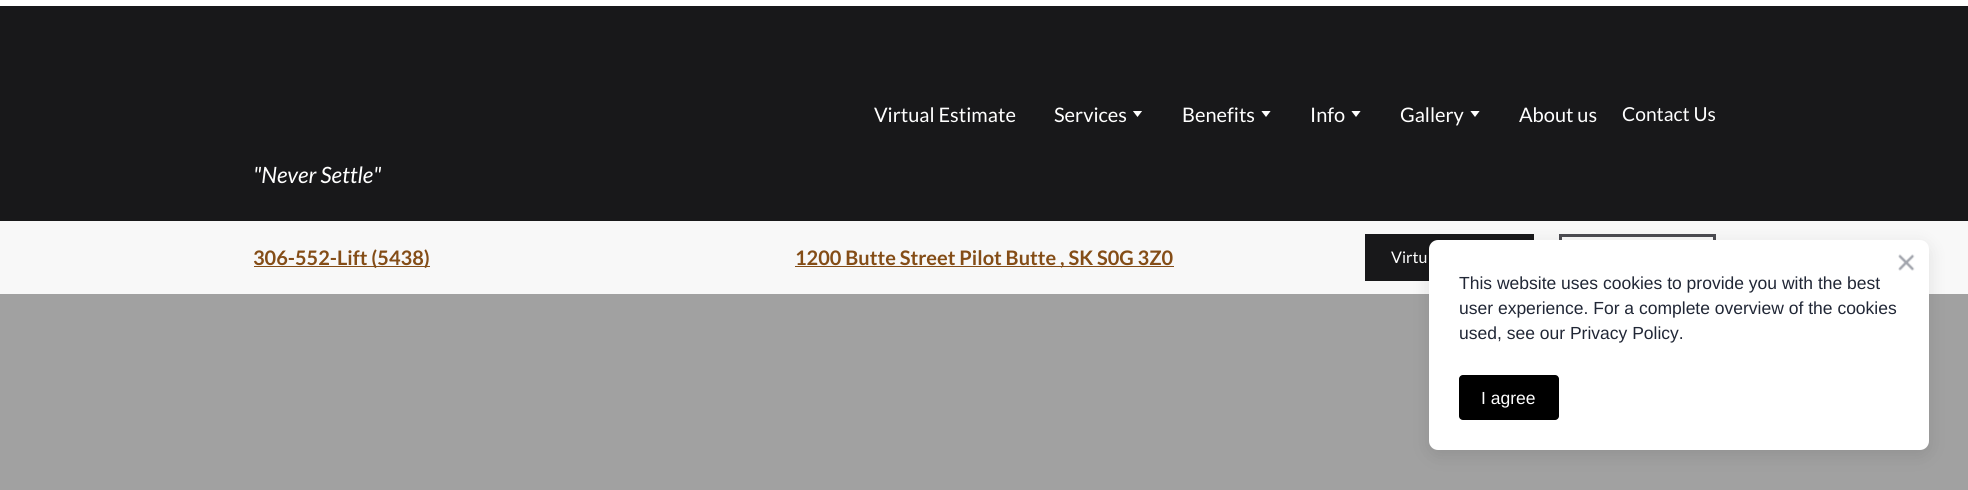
import math
import cairo

surface = cairo.ImageSurface(cairo.FORMAT_RGB24, 1968, 490)
ctx = cairo.Context(surface)
options = cairo.FontOptions()
options.set_hint_metrics(cairo.HINT_METRICS_OFF)
options.set_hint_style(cairo.HINT_STYLE_NONE)
ctx.set_font_options(options)
ctx.set_miter_limit(4)


def set_color(code):
    ctx.set_source_rgb(*(v / 255 for v in bytes.fromhex(code[-6:])))


def draw_text(x, y, s, family, size, color, bold=False, italic=False):
    ctx.select_font_face(family, cairo.FONT_SLANT_ITALIC if italic else cairo.FONT_SLANT_NORMAL, cairo.FONT_WEIGHT_BOLD if bold else cairo.FONT_WEIGHT_NORMAL)
    ctx.set_font_size(size)
    set_color(color)
    ctx.move_to(x, y)
    ctx.show_text(s)


def fill_rect(x, y, w, h, color):
    set_color(color)
    ctx.rectangle(x, y, w, h)
    ctx.fill()


def rounded_rect(x, y, w, h, r):
    ctx.new_sub_path()
    for i, (u, v) in enumerate([(x + w - r, y + h - r), (x + r, y + h - r), (x + r, y + r), (x + w - r, y + r)]):
        ctx.arc(u, v, r, i * math.pi / 2, (i + 1) * math.pi / 2)
    ctx.close_path()


def draw_shadow(x, y, w, h, r, blur, alpha):
    ctx.push_group_with_content(cairo.CONTENT_ALPHA)
    ctx.set_operator(cairo.OPERATOR_SOURCE)
    for i in range(15, -16, -2):
        e = blur * i / 6
        if min(w, h) + 2 * e > 0:
            ctx.set_source_rgba(0, 0, 0, alpha * math.erfc((i - 1) / 8.5) / 2)
            rounded_rect(x - e, y - e, w + 2 * e, h + 2 * e, max(0, min(r + e + blur * .6, min(w, h) / 2 + e)))
            ctx.fill()
    ctx.mask(ctx.pop_group())


def draw_image(path, x, y, w, h):
    ctx.save()
    ctx.set_source_surface(cairo.ImageSurface.create_from_png(path), x, y)
    ctx.rectangle(x, y, w, h)
    ctx.fill()
    ctx.restore()


set_color("#ffffff")
ctx.paint()
fill_rect(0, 6, 1968, 215, "#18181a")
draw_text(874, 122, "Virtual Estimate", "Lato", 20, "#ffffff")
draw_text(1054, 122, "Services", "Lato", 20, "#ffffff")
ctx.save()
ctx.rectangle(1131, 111, 13, 7)
ctx.clip()
ctx.new_path()
ctx.move_to(1137.5, 117)
ctx.line_to(1142.5, 110.5)
ctx.line_to(1132.5, 110.5)
ctx.close_path()
ctx.fill()
ctx.restore()
draw_text(1182, 122, "Benefits", "Lato", 20, "#ffffff")
ctx.save()
ctx.rectangle(1260, 111, 13, 7)
ctx.clip()
ctx.new_path()
ctx.move_to(1266, 117)
ctx.line_to(1271, 110.5)
ctx.line_to(1261, 110.5)
ctx.close_path()
ctx.fill()
ctx.restore()
draw_text(1310, 122, "Info", "Lato", 20, "#ffffff")
ctx.save()
ctx.rectangle(1350, 111, 13, 7)
ctx.clip()
ctx.new_path()
ctx.move_to(1356, 117)
ctx.line_to(1361, 110.5)
ctx.line_to(1351, 110.5)
ctx.close_path()
ctx.fill()
ctx.restore()
draw_text(1400, 122, "Gallery", "Lato", 20, "#ffffff")
ctx.save()
ctx.rectangle(1469, 111, 12, 7)
ctx.clip()
ctx.new_path()
ctx.move_to(1475, 117)
ctx.line_to(1480, 110.5)
ctx.line_to(1470, 110.5)
ctx.close_path()
ctx.fill()
ctx.restore()
draw_text(1519, 122, "About us", "Lato", 20, "#ffffff")
draw_text(1622, 121, "Contact Us", "Lato", 19.25, "#ffffff")
draw_text(253, 183, "\"Never Settle\"", "Lato", 22.5, "#ffffff", italic=True)
fill_rect(0, 221, 1968, 73, "#f8f8f8")
fill_rect(254, 266, 176, 1, "#844d17")
draw_text(253, 265, "306-552-Lift (5438)", "Lato", 20, "#844d17", bold=True)
fill_rect(795, 266, 379, 1, "#844d17")
draw_text(795, 265, "1200 Butte Street Pilot Butte , SK S0G 3Z0", "Lato", 20, "#844d17", bold=True)
fill_rect(1365, 234, 169, 47, "#18181a")
draw_text(1391, 263, "Virtu", "Lato", 16, "#ffffff")
ctx.rectangle(1560.5, 235.5, 154, 44)
set_color("#4b4b51")
ctx.set_line_width(3)
ctx.stroke()
fill_rect(0, 294, 1968, 196, "#a1a1a1")
set_color("#000000")
draw_shadow(1429, 245, 500, 210, 9, 9, 0.1)
set_color("#ffffff")
rounded_rect(1429, 240, 500, 210, 9)
ctx.fill()
draw_image("assets/img1.png", 1898, 254, 17, 17)
draw_text(1459, 289, "This website uses cookies to provide you with the best", "Liberation Sans", 17.5, "#212736")
draw_text(1459, 314, "user experience. For a complete overview of the cookies", "Liberation Sans", 17.5, "#212736")
draw_text(1459, 339, "used, see our Privacy Policy.", "Liberation Sans", 17.5, "#212736")
set_color("#000000")
rounded_rect(1459, 375, 100, 45, 4)
ctx.fill()
draw_text(1481, 404, "I agree", "Liberation Sans", 17.5, "#ffffff")
surface.write_to_png("output.png")
